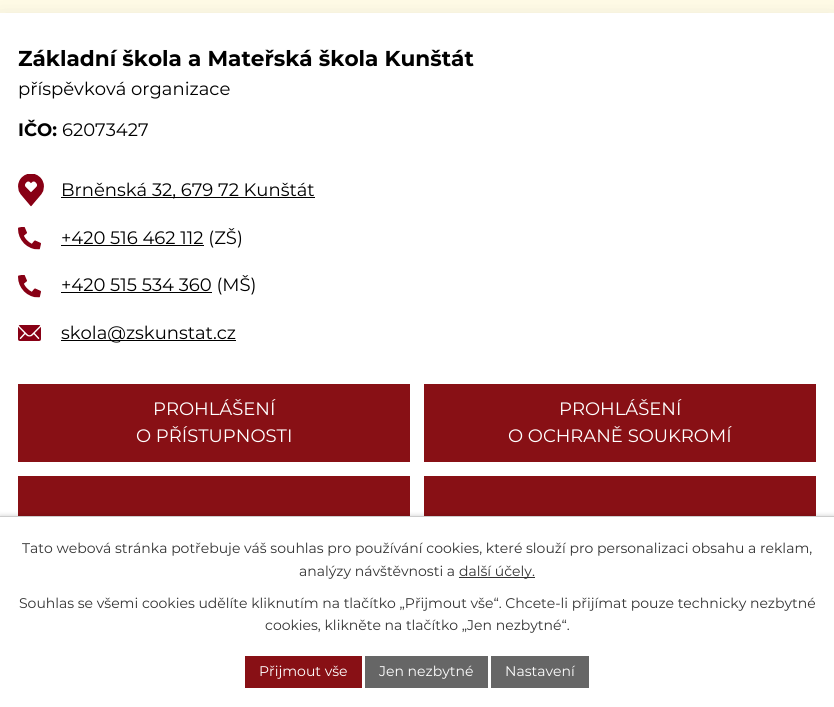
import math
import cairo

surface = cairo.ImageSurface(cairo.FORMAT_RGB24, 834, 707)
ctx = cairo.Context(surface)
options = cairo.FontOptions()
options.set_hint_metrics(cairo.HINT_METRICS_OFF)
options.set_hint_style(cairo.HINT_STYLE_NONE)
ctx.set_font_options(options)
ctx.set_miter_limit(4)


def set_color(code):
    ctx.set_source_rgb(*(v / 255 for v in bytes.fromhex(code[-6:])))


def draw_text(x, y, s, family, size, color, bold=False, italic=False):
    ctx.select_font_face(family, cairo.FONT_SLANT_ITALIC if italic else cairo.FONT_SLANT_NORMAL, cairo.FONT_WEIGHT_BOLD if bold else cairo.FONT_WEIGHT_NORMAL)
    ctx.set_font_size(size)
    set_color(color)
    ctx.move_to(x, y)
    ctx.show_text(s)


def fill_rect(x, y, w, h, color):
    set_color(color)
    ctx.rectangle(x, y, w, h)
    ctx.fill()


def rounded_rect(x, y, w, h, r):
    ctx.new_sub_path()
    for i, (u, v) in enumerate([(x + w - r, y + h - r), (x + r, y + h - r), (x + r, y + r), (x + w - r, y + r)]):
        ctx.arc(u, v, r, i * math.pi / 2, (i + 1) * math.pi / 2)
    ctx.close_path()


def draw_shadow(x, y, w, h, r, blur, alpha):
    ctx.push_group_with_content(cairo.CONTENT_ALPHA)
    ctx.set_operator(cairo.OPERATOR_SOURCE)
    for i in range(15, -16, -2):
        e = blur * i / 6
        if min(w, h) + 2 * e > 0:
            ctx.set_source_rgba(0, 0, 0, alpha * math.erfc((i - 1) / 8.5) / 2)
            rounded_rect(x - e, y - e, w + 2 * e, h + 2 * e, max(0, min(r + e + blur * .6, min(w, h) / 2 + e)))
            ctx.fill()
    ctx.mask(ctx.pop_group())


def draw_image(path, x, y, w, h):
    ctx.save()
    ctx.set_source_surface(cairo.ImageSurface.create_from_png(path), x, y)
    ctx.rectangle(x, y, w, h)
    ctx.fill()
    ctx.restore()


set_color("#fffbe6")
ctx.paint()
set_color("#000000")
draw_shadow(0, 23, 834, 572, 0, 12.5, 0.16)
fill_rect(0, 13, 834, 503, "#ffffff")
draw_text(18, 66, "Základní škola a Mateřská škola Kunštát", "Montserrat", 21.6, "#000000", bold=True)
draw_text(18, 95, "příspěvková organizace", "Montserrat", 18, "#000000")
draw_text(18, 136, "IČO:", "Montserrat", 18, "#000000", bold=True)
draw_text(62, 136, "62073427", "Montserrat", 18, "#000000")
draw_image("assets/img1.png", 18, 174, 26, 33)
fill_rect(61, 197, 254, 1, "#000000")
draw_text(61, 196, "Brněnská 32, 679 72 Kunštát", "Montserrat", 18, "#000000")
draw_image("assets/img2.png", 18, 227, 23, 23)
fill_rect(61, 245, 143, 1, "#000000")
draw_text(61, 244, "+420 516 462 112 (ZŠ)", "Montserrat", 18, "#000000")
draw_image("assets/img2.png", 18, 275, 23, 23)
fill_rect(61, 292, 151, 1, "#000000")
draw_text(61, 291, "+420 515 534 360 (MŠ)", "Montserrat", 18, "#000000")
draw_image("assets/img3.png", 18, 325, 23, 16)
fill_rect(61, 340, 175, 1, "#000000")
draw_text(61, 339, "skola@zskunstat.cz", "Montserrat", 18, "#000000")
fill_rect(18, 384, 392, 78, "#881015")
draw_text(153, 415, "PROHLÁŠENÍ", "Montserrat", 18, "#ffffff")
draw_text(136, 442, "O PŘÍSTUPNOSTI", "Montserrat", 18, "#ffffff")
fill_rect(424, 384, 392, 78, "#881015")
draw_text(559, 415, "PROHLÁŠENÍ", "Montserrat", 18, "#ffffff")
draw_text(508, 442, "O OCHRANĚ SOUKROMÍ", "Montserrat", 18, "#ffffff")
fill_rect(18, 476, 392, 40, "#881015")
fill_rect(424, 476, 392, 40, "#881015")
set_color("#000000")
draw_shadow(0, 516, 834, 191, 0, 2.5, 0.2)
fill_rect(0, 517, 834, 190, "#ffffff")
fill_rect(0, 516, 834, 1, "#cccccc")
draw_text(22, 553, "Tato webová stránka potřebuje váš souhlas pro používání cookies, které slouží pro personalizaci obsahu a reklam,", "Montserrat", 14, "#333333")
draw_text(299, 576, "analýzy návštěvnosti a", "Montserrat", 14, "#333333")
fill_rect(459, 577, 76, 1, "#333333")
draw_text(459, 576, "další účely.", "Montserrat", 14, "#333333")
draw_text(19, 608, "Souhlas se všemi cookies udělíte kliknutím na tlačítko „Přijmout vše“. Chcete-li přijímat pouze technicky nezbytné", "Montserrat", 14, "#333333")
draw_text(265, 630, "cookies, klikněte na tlačítko „Jen nezbytné“.", "Montserrat", 14, "#333333")
fill_rect(245, 656, 117, 32, "#881015")
draw_text(259, 676, "Přijmout vše", "Montserrat", 14, "#ffffff")
fill_rect(365, 656, 123, 32, "#666666")
draw_text(379, 676, "Jen nezbytné", "Montserrat", 14, "#ffffff")
fill_rect(491, 656, 98, 32, "#666666")
draw_text(505, 676, "Nastavení", "Montserrat", 14, "#ffffff")
surface.write_to_png("output.png")
